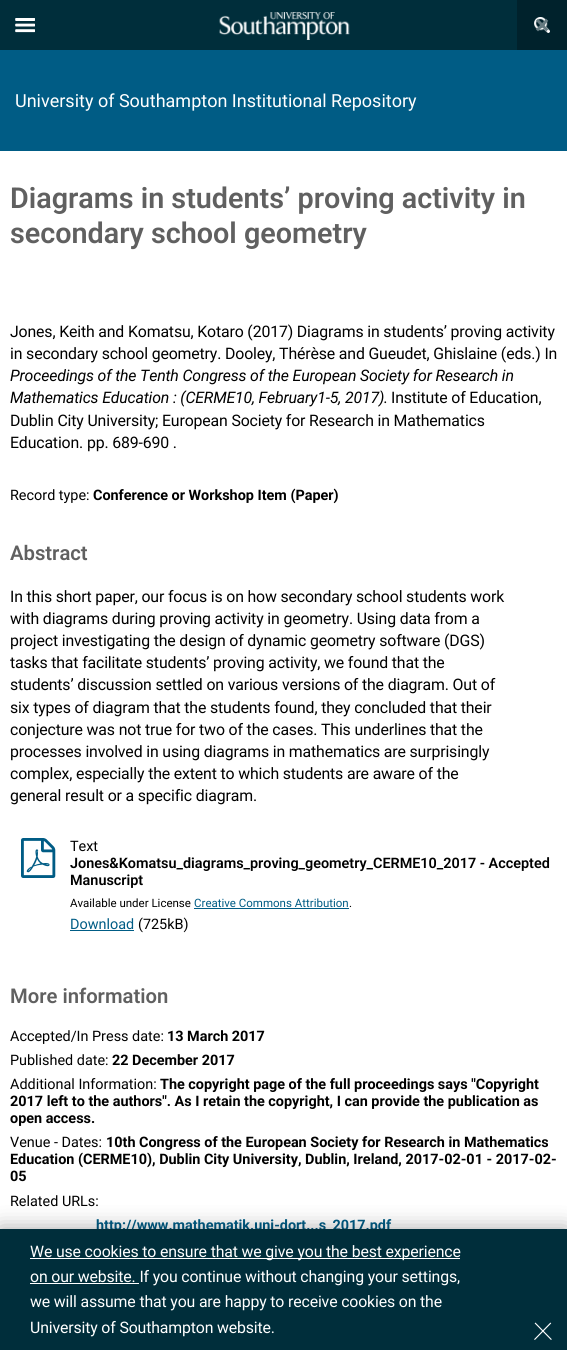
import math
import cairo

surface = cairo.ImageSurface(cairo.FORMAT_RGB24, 567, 1350)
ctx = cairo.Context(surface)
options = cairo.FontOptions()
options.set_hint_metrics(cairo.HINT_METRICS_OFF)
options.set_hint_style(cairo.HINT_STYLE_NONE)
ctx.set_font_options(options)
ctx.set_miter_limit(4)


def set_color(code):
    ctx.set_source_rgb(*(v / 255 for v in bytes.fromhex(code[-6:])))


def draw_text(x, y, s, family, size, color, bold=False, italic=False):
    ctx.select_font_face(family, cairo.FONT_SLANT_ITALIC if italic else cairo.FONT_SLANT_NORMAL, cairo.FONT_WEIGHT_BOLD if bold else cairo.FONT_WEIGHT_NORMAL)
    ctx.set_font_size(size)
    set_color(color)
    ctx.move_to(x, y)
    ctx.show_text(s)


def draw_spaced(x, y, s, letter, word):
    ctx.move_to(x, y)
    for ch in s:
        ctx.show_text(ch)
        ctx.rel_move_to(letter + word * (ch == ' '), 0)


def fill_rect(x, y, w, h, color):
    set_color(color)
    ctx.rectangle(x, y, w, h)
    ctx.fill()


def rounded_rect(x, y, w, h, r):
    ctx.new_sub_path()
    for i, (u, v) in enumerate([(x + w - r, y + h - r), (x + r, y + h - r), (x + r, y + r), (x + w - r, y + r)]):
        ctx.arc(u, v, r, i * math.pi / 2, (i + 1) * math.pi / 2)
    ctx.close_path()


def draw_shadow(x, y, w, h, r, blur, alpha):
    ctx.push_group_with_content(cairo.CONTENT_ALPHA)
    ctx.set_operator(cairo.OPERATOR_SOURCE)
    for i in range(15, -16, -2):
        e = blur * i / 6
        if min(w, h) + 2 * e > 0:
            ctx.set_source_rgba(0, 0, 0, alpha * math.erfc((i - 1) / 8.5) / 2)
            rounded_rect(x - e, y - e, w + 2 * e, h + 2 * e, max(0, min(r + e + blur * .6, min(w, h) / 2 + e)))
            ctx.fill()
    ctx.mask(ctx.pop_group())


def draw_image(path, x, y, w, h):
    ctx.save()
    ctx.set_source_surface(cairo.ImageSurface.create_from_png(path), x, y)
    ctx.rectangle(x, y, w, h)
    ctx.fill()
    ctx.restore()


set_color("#ffffff")
ctx.paint()
fill_rect(0, 0, 517, 50, "#002e3b")
draw_image("assets/img1.png", 15, 18, 20, 15)
draw_image("assets/img2.png", 219, 12, 131, 28)
fill_rect(517, 0, 50, 50, "#00222c")
draw_image("assets/img3.png", 534, 17, 16, 16)
draw_text(535, 34, "×", "Roboto SemiBold", 27, "#667b81")
fill_rect(0, 50, 567, 101, "#005c85")
draw_text(15, 107, "University of Southampton Institutional Repository", "Roboto", 18, "#ffffff")
draw_text(10, 208, "Diagrams in students’ proving activity in", "Roboto SemiBold", 28.75, "#606060")
draw_text(10, 243, "secondary school geometry", "Roboto SemiBold", 28.75, "#606060")
ctx.select_font_face("Roboto")
ctx.set_font_size(15.85)
set_color("#000000")
draw_spaced(10, 337, "Jones, Keith and Komatsu, Kotaro (2017) Diagrams in students’ proving activity", -0.15, 0)
draw_spaced(10, 359, "in secondary school geometry. Dooley, Thérèse and Gueudet, Ghislaine (eds.) In", -0.15, 0)
ctx.select_font_face("Roboto", cairo.FONT_SLANT_ITALIC)
draw_spaced(10, 381, "Proceedings of the Tenth Congress of the European Society for Research in", -0.15, 0)
draw_spaced(10, 403, "Mathematics Education : (CERME10, February1-5, 2017).", -0.15, 0)
ctx.select_font_face("Roboto")
draw_spaced(391, 403, "Institute of Education,", -0.15, 0)
draw_spaced(10, 426, "Dublin City University; European Society for Research in Mathematics", -0.15, 0)
draw_spaced(10, 448, "Education. pp. 689-690 .", -0.15, 0)
draw_text(10, 500, "Record type:", "Roboto", 14.4, "#000000")
draw_text(93, 500, "Conference or Workshop Item (Paper)", "Roboto", 14.4, "#000000", bold=True)
draw_text(10, 560, "Abstract", "Roboto SemiBold", 20.25, "#606060")
ctx.select_font_face("Roboto")
ctx.set_font_size(15.85)
set_color("#000000")
draw_spaced(10, 602, "In this short paper, our focus is on how secondary school students work", -0.15, 0)
draw_spaced(10, 624, "with diagrams during proving activity in geometry. Using data from a", -0.15, 0)
draw_spaced(10, 646, "project investigating the design of dynamic geometry software (DGS)", -0.15, 0)
draw_spaced(10, 668, "tasks that facilitate students’ proving activity, we found that the", -0.15, 0)
draw_spaced(10, 690, "students’ discussion settled on various versions of the diagram. Out of", -0.15, 0)
draw_spaced(10, 713, "six types of diagram that the students found, they concluded that their", -0.15, 0)
draw_spaced(10, 735, "conjecture was not true for two of the cases. This underlines that the", -0.15, 0)
draw_spaced(10, 757, "processes involved in using diagrams in mathematics are surprisingly", -0.15, 0)
draw_spaced(10, 779, "complex, especially the extent to which students are aware of the", -0.15, 0)
draw_spaced(10, 801, "general result or a specific diagram.", -0.15, 0)
draw_image("assets/img4.png", 21, 838, 35, 40)
draw_text(70, 851, "Text", "Roboto", 14.4, "#000000")
draw_text(70, 868, "Jones&Komatsu_diagrams_proving_geometry_CERME10_2017 - Accepted", "Roboto SemiBold", 14.4, "#000000")
draw_text(70, 885, "Manuscript", "Roboto SemiBold", 14.4, "#000000")
draw_text(70, 907, "Available under License", "Roboto", 11.5, "#000000")
draw_text(194, 907, "Creative Commons Attribution", "Roboto", 11.5, "#005c85")
fill_rect(194, 908, 155, 1, "#005c85")
draw_text(349, 907, ".", "Roboto", 11.5, "#000000")
draw_text(70, 929, "Download", "Roboto", 14.4, "#005c85")
fill_rect(70, 930, 64, 1, "#005c85")
draw_text(138, 929, "(725kB)", "Roboto", 14.4, "#000000")
draw_text(10, 1003, "More information", "Roboto SemiBold", 20.25, "#606060")
draw_text(10, 1041, "Accepted/In Press date:", "Roboto", 14.4, "#000000")
draw_text(167, 1041, "13 March 2017", "Roboto", 14.4, "#000000", bold=True)
draw_text(10, 1065, "Published date:", "Roboto", 14.4, "#000000")
draw_text(112, 1065, "22 December 2017", "Roboto", 14.4, "#000000", bold=True)
draw_text(10, 1089, "Additional Information:", "Roboto", 14.4, "#000000")
draw_text(160, 1089, "The copyright page of the full proceedings says \"Copyright", "Roboto", 14.4, "#000000", bold=True)
draw_text(10, 1106, "2017 left to the authors\". As I retain the copyright, I can provide the publication as", "Roboto", 14.4, "#000000", bold=True)
draw_text(10, 1123, "open access.", "Roboto", 14.4, "#000000", bold=True)
draw_text(10, 1147, "Venue - Dates:", "Roboto", 14.4, "#000000")
draw_text(106, 1147, "10th Congress of the European Society for Research in Mathematics", "Roboto", 14.4, "#000000", bold=True)
draw_text(10, 1164, "Education (CERME10), Dublin City University, Dublin, Ireland, 2017-02-01 - 2017-02-", "Roboto", 14.4, "#000000", bold=True)
draw_text(10, 1181, "05", "Roboto", 14.4, "#000000", bold=True)
draw_text(10, 1206, "Related URLs:", "Roboto", 14.4, "#000000")
draw_text(96, 1230, "http://www.mathematik.uni-dort...s_2017.pdf", "Roboto", 14.4, "#005c85", bold=True)
set_color("#000000")
draw_shadow(0, 1229, 567, 121, 0, 11, 0.35)
fill_rect(0, 1229, 567, 121, "#002e3b")
fill_rect(30, 1258, 430, 1, "#ffffff")
ctx.select_font_face("Roboto")
ctx.set_font_size(15.85)
draw_spaced(30, 1257, "We use cookies to ensure that we give you the best experience", -0.15, 0)
fill_rect(30, 1283, 109, 1, "#ffffff")
draw_spaced(30, 1282, "on our website. If you continue without changing your settings,", -0.15, 0)
draw_spaced(30, 1307, "we will assume that you are happy to receive cookies on the", -0.15, 0)
draw_spaced(30, 1333, "University of Southampton website.", -0.15, 0)
draw_text(532, 1340, "×", "Roboto Thin", 43, "#ffffff")
surface.write_to_png("output.png")
